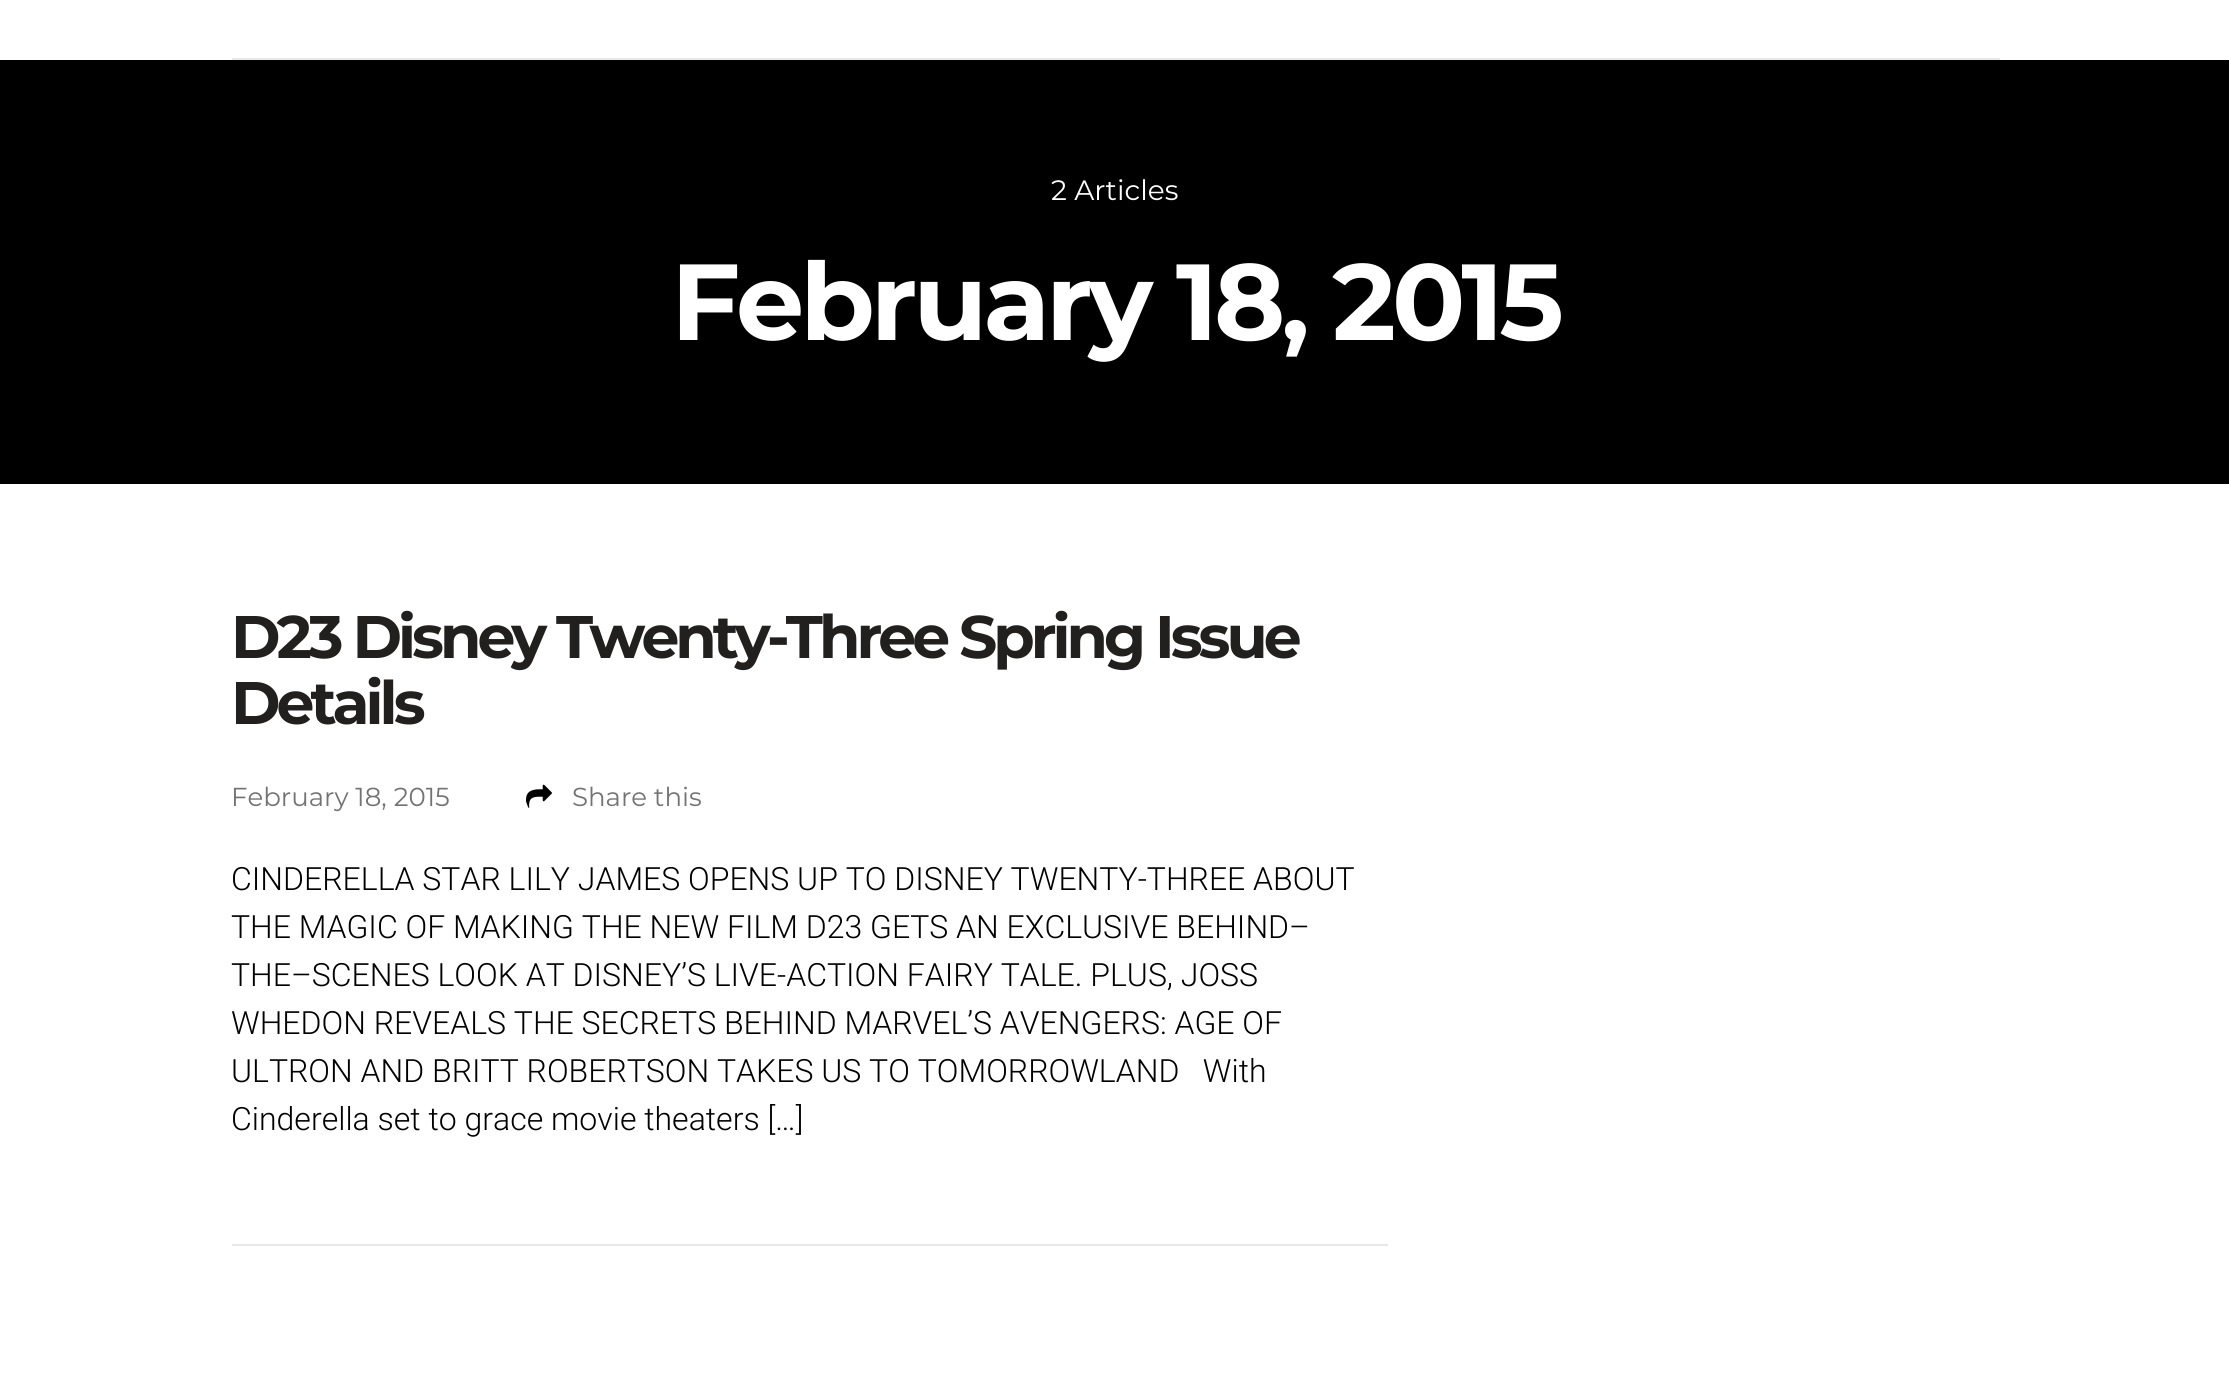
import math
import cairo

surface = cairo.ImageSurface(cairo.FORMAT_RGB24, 2229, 1373)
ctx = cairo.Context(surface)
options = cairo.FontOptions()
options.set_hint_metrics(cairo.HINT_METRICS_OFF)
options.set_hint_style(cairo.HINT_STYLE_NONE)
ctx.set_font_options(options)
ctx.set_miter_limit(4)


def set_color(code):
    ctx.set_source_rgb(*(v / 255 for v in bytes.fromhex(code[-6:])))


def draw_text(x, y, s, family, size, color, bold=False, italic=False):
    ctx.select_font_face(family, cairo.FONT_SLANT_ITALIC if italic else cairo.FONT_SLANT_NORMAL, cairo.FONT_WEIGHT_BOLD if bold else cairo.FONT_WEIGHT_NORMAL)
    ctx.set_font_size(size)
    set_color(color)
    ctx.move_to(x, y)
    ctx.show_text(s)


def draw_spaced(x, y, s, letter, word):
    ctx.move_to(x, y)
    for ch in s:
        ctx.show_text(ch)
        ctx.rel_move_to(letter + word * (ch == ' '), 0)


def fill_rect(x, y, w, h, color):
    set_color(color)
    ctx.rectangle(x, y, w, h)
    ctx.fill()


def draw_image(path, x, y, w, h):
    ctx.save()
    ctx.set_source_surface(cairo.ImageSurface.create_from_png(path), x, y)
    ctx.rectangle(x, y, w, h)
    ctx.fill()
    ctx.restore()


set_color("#ffffff")
ctx.paint()
fill_rect(232, 58, 1768, 2, "#e8e8e8")
fill_rect(0, 60, 2229, 424, "#000000")
draw_text(1051, 200, "2 Articles", "Montserrat", 28, "#ffffff")
ctx.select_font_face("Montserrat", cairo.FONT_SLANT_NORMAL, cairo.FONT_WEIGHT_BOLD)
ctx.set_font_size(108)
draw_spaced(671, 340, "February 18, 2015", -4, 0)
fill_rect(232, 1244, 1156, 2, "#e8e8e8")
ctx.set_font_size(60)
set_color("#21201f")
draw_spaced(231, 658, "D23 Disney Twenty-Three Spring Issue", -4, 0)
draw_spaced(231, 724, "Details", -4, 0)
draw_text(231, 806, "February 18, 2015", "Montserrat", 26, "#737373")
draw_image("assets/img1.png", 526, 784, 26, 24)
draw_text(572, 806, "Share this", "Montserrat", 26, "#737373")
draw_text(231, 890, "CINDERELLA STAR LILY JAMES OPENS UP TO DISNEY TWENTY-THREE ABOUT", "Roboto Light", 32, "#000000")
draw_text(231, 938, "THE MAGIC OF MAKING THE NEW FILM D23 GETS AN EXCLUSIVE BEHIND–", "Roboto Light", 32, "#000000")
draw_text(231, 986, "THE–SCENES LOOK AT DISNEY’S LIVE-ACTION FAIRY TALE. PLUS, JOSS", "Roboto Light", 32, "#000000")
draw_text(231, 1034, "WHEDON REVEALS THE SECRETS BEHIND MARVEL’S AVENGERS: AGE OF", "Roboto Light", 32, "#000000")
draw_text(231, 1082, "ULTRON AND BRITT ROBERTSON TAKES US TO TOMORROWLAND   With", "Roboto Light", 32, "#000000")
draw_text(231, 1130, "Cinderella set to grace movie theaters […]", "Roboto Light", 32, "#000000")
surface.write_to_png("output.png")
